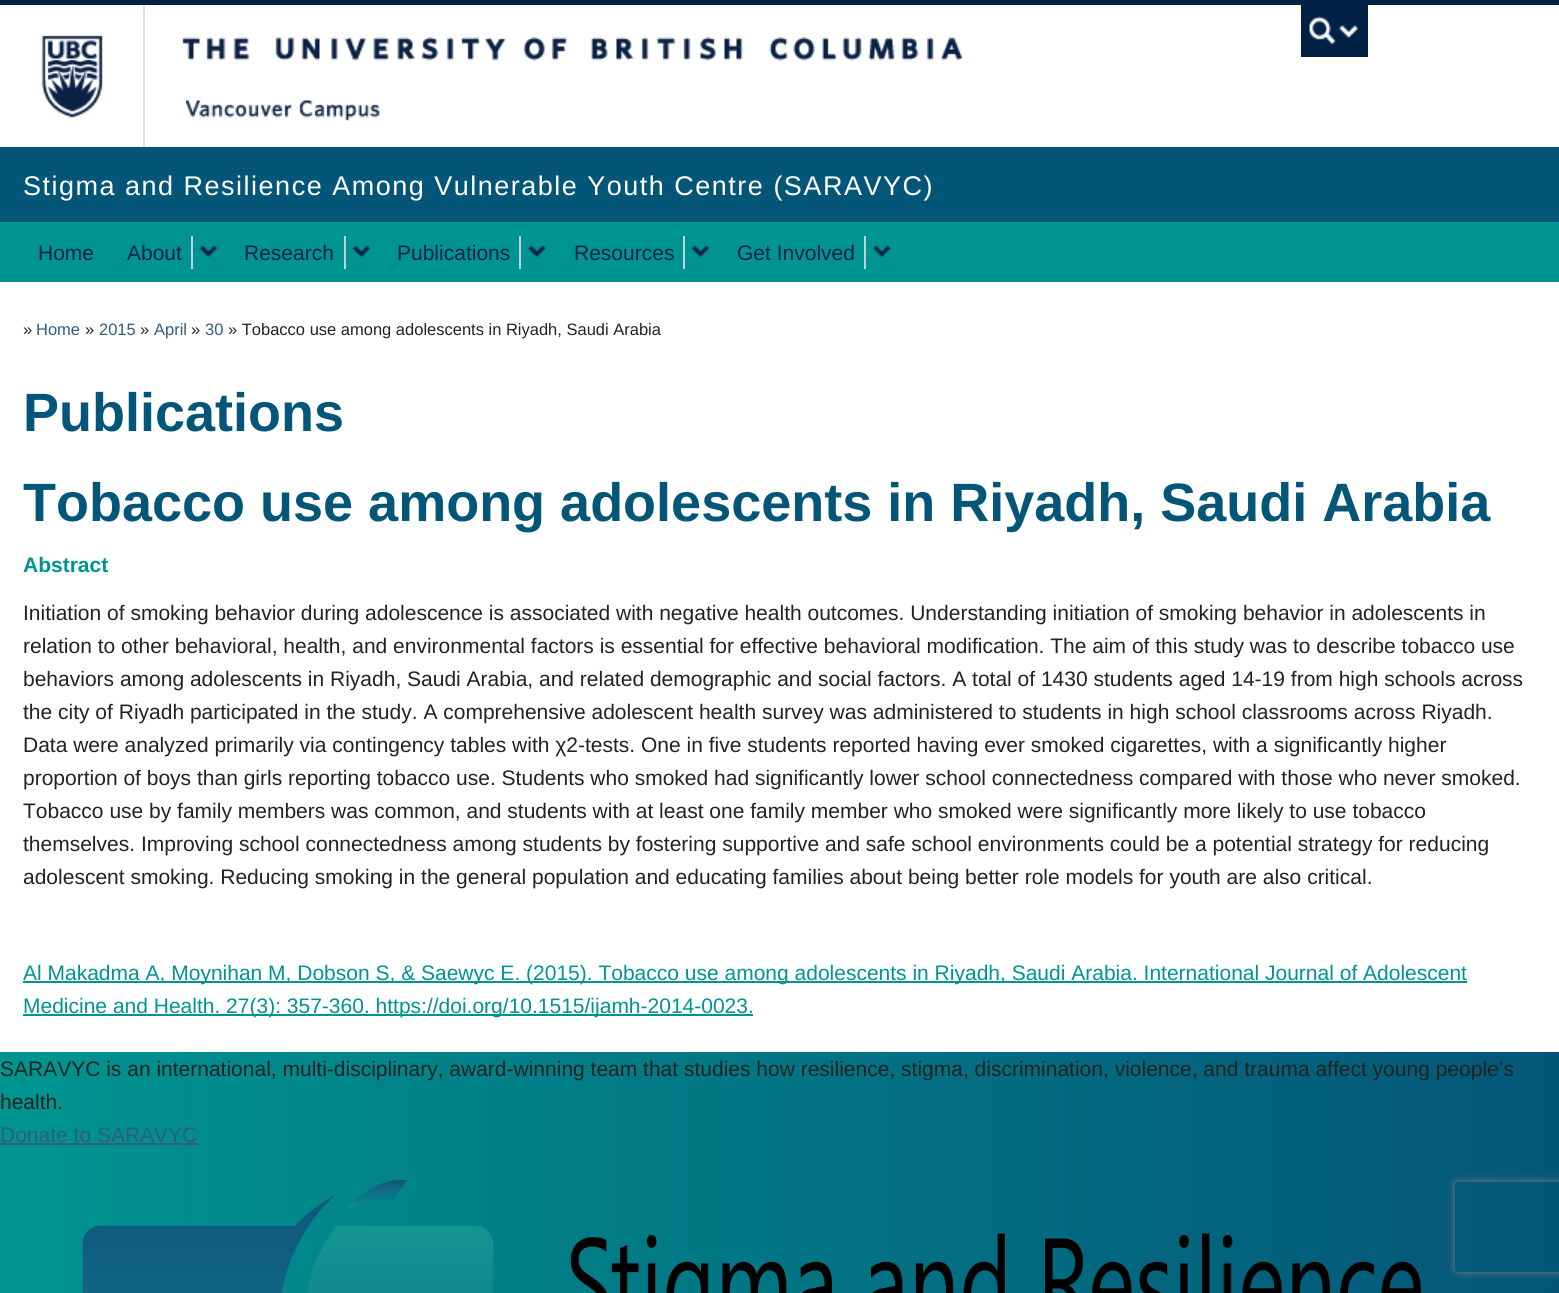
import math
import cairo

surface = cairo.ImageSurface(cairo.FORMAT_RGB24, 1559, 1293)
ctx = cairo.Context(surface)
options = cairo.FontOptions()
options.set_hint_metrics(cairo.HINT_METRICS_OFF)
options.set_hint_style(cairo.HINT_STYLE_NONE)
ctx.set_font_options(options)
ctx.set_miter_limit(4)


def set_color(code):
    ctx.set_source_rgb(*(v / 255 for v in bytes.fromhex(code[-6:])))


def draw_text(x, y, s, family, size, color, bold=False, italic=False):
    ctx.select_font_face(family, cairo.FONT_SLANT_ITALIC if italic else cairo.FONT_SLANT_NORMAL, cairo.FONT_WEIGHT_BOLD if bold else cairo.FONT_WEIGHT_NORMAL)
    ctx.set_font_size(size)
    set_color(color)
    ctx.move_to(x, y)
    ctx.show_text(s)


def draw_spaced(x, y, s, letter, word):
    ctx.move_to(x, y)
    for ch in s:
        ctx.show_text(ch)
        ctx.rel_move_to(letter + word * (ch == ' '), 0)


def fill_rect(x, y, w, h, color):
    set_color(color)
    ctx.rectangle(x, y, w, h)
    ctx.fill()


def rounded_rect(x, y, w, h, r):
    ctx.new_sub_path()
    for i, (u, v) in enumerate([(x + w - r, y + h - r), (x + r, y + h - r), (x + r, y + r), (x + w - r, y + r)]):
        ctx.arc(u, v, r, i * math.pi / 2, (i + 1) * math.pi / 2)
    ctx.close_path()


def draw_shadow(x, y, w, h, r, blur, alpha):
    ctx.push_group_with_content(cairo.CONTENT_ALPHA)
    ctx.set_operator(cairo.OPERATOR_SOURCE)
    for i in range(15, -16, -2):
        e = blur * i / 6
        if min(w, h) + 2 * e > 0:
            ctx.set_source_rgba(0, 0, 0, alpha * math.erfc((i - 1) / 8.5) / 2)
            rounded_rect(x - e, y - e, w + 2 * e, h + 2 * e, max(0, min(r + e + blur * .6, min(w, h) / 2 + e)))
            ctx.fill()
    ctx.mask(ctx.pop_group())


def draw_image(path, x, y, w, h):
    ctx.save()
    ctx.set_source_surface(cairo.ImageSurface.create_from_png(path), x, y)
    ctx.rectangle(x, y, w, h)
    ctx.fill()
    ctx.restore()


set_color("#009490")
ctx.paint()
fill_rect(0, 5, 1559, 142, "#ffffff")
fill_rect(0, 0, 1559, 5, "#002145")
draw_image("assets/img1.png", 41, 35, 62, 83)
draw_image("assets/img2.png", 182, 37, 781, 24)
fill_rect(143, 5, 2, 142, "#d7e0e7")
fill_rect(1301, 5, 67, 52, "#002145")
draw_image("assets/img3.png", 1309, 16, 49, 29)
draw_image("assets/img4.png", 186, 100, 194, 21)
fill_rect(0, 147, 1559, 75, "#045678")
ctx.select_font_face("Liberation Sans")
ctx.set_font_size(27)
set_color("#ffffff")
draw_spaced(23, 195, "Stigma and Resilience Among Vulnerable Youth Centre (SARAVYC)", 1.5, 0)
draw_text(38, 260, "Home", "Liberation Sans", 21, "#002145")
draw_text(127, 260, "About", "Liberation Sans", 21, "#002145")
fill_rect(191, 236, 2, 33, "#c3d0db")
draw_image("assets/img5.png", 199, 245, 19, 12)
draw_text(244, 260, "Research", "Liberation Sans", 21, "#002145")
fill_rect(344, 236, 2, 33, "#c3d0db")
draw_image("assets/img5.png", 352, 245, 19, 12)
draw_text(397, 260, "Publications", "Liberation Sans", 21, "#002145")
fill_rect(519, 236, 2, 33, "#c3d0db")
draw_image("assets/img6.png", 527, 245, 20, 12)
draw_text(574, 260, "Resources", "Liberation Sans", 21, "#002145")
fill_rect(683, 236, 2, 33, "#c3d0db")
draw_image("assets/img7.png", 691, 245, 19, 12)
draw_text(737, 260, "Get Involved", "Liberation Sans", 21, "#002145")
fill_rect(864, 236, 2, 33, "#c3d0db")
draw_image("assets/img8.png", 872, 245, 20, 12)
fill_rect(0, 282, 1559, 770, "#ffffff")
draw_text(23, 335, "»", "Liberation Sans", 16.5, "#222222")
draw_text(36, 335, "Home", "Liberation Sans", 16.5, "#2f5d7c")
draw_text(85, 335, "»", "Liberation Sans", 16.5, "#222222")
draw_text(99, 335, "2015", "Liberation Sans", 16.5, "#2f5d7c")
draw_text(140, 335, "»", "Liberation Sans", 16.5, "#222222")
draw_text(154, 335, "April", "Liberation Sans", 16.5, "#2f5d7c")
draw_text(191, 335, "»", "Liberation Sans", 16.5, "#222222")
draw_text(205, 335, "30", "Liberation Sans", 16.5, "#2f5d7c")
draw_text(228, 335, "» Tobacco use among adolescents in Riyadh, Saudi Arabia", "Liberation Sans", 16.5, "#222222")
draw_text(23, 431, "Publications", "Liberation Sans", 54, "#045678", bold=True)
draw_text(23, 521, "Tobacco use among adolescents in Riyadh, Saudi Arabia", "Liberation Sans", 54, "#045678", bold=True)
draw_text(23, 572, "Abstract", "Liberation Sans", 21, "#009490", bold=True)
draw_text(23, 620, "Initiation of smoking behavior during adolescence is associated with negative health outcomes. Understanding initiation of smoking behavior in adolescents in", "Liberation Sans", 21, "#222222")
draw_text(23, 653, "relation to other behavioral, health, and environmental factors is essential for effective behavioral modification. The aim of this study was to describe tobacco use", "Liberation Sans", 21, "#222222")
draw_text(23, 686, "behaviors among adolescents in Riyadh, Saudi Arabia, and related demographic and social factors. A total of 1430 students aged 14-19 from high schools across", "Liberation Sans", 21, "#222222")
draw_text(23, 719, "the city of Riyadh participated in the study. A comprehensive adolescent health survey was administered to students in high school classrooms across Riyadh.", "Liberation Sans", 21, "#222222")
draw_text(23, 752, "Data were analyzed primarily via contingency tables with χ2-tests. One in five students reported having ever smoked cigarettes, with a significantly higher", "Liberation Sans", 21, "#222222")
draw_text(23, 785, "proportion of boys than girls reporting tobacco use. Students who smoked had significantly lower school connectedness compared with those who never smoked.", "Liberation Sans", 21, "#222222")
draw_text(23, 818, "Tobacco use by family members was common, and students with at least one family member who smoked were significantly more likely to use tobacco", "Liberation Sans", 21, "#222222")
draw_text(23, 851, "themselves. Improving school connectedness among students by fostering supportive and safe school environments could be a potential strategy for reducing", "Liberation Sans", 21, "#222222")
draw_text(23, 884, "adolescent smoking. Reducing smoking in the general population and educating families about being better role models for youth are also critical.", "Liberation Sans", 21, "#222222")
fill_rect(23, 981, 1444, 2, "#009490")
draw_text(23, 980, "Al Makadma A, Moynihan M, Dobson S, & Saewyc E. (2015). Tobacco use among adolescents in Riyadh, Saudi Arabia. International Journal of Adolescent", "Liberation Sans", 21, "#009490")
fill_rect(23, 1014, 730, 2, "#009490")
draw_text(23, 1013, "Medicine and Health. 27(3): 357-360. https://doi.org/10.1515/ijamh-2014-0023.", "Liberation Sans", 21, "#009490")
gradient = cairo.LinearGradient(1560, 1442, 0, 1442)
gradient.add_color_stop_rgba(0, 0.016, 0.337, 0.471, 1)
gradient.add_color_stop_rgba(1, 0, 0.58, 0.565, 1)
ctx.set_source(gradient)
ctx.rectangle(63, 1052, 1496, 241)
ctx.fill()
draw_text(0, 1076, "SARAVYC is an international, multi-disciplinary, award-winning team that studies how resilience, stigma, discrimination, violence, and trauma affect young people’s", "Liberation Sans", 21, "#222222")
draw_text(0, 1109, "health.", "Liberation Sans", 21, "#222222")
draw_text(0, 1142, "Donate to SARAVYC", "Liberation Sans", 21, "#2f5d7c")
fill_rect(0, 1143, 198, 2, "#2f5d7c")
draw_image("assets/img9.png", 82, 1180, 1339, 113)
ctx.save()
ctx.set_fill_rule(cairo.FILL_RULE_EVEN_ODD)
ctx.new_path()
ctx.move_to(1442, 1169)
ctx.line_to(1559, 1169)
ctx.line_to(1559, 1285)
ctx.line_to(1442, 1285)
ctx.close_path()
ctx.move_to(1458, 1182)
ctx.line_to(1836, 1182)
ctx.curve_to(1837.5, 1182, 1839, 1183.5, 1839, 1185)
ctx.line_to(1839, 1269)
ctx.curve_to(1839, 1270.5, 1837.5, 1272, 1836, 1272)
ctx.line_to(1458, 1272)
ctx.curve_to(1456.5, 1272, 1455, 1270.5, 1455, 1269)
ctx.line_to(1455, 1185)
ctx.curve_to(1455, 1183.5, 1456.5, 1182, 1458, 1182)
ctx.close_path()
ctx.clip()
set_color("#808080")
draw_shadow(1455, 1182, 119, 90, 3, 4, 1)
ctx.restore()
surface.write_to_png("output.png")
